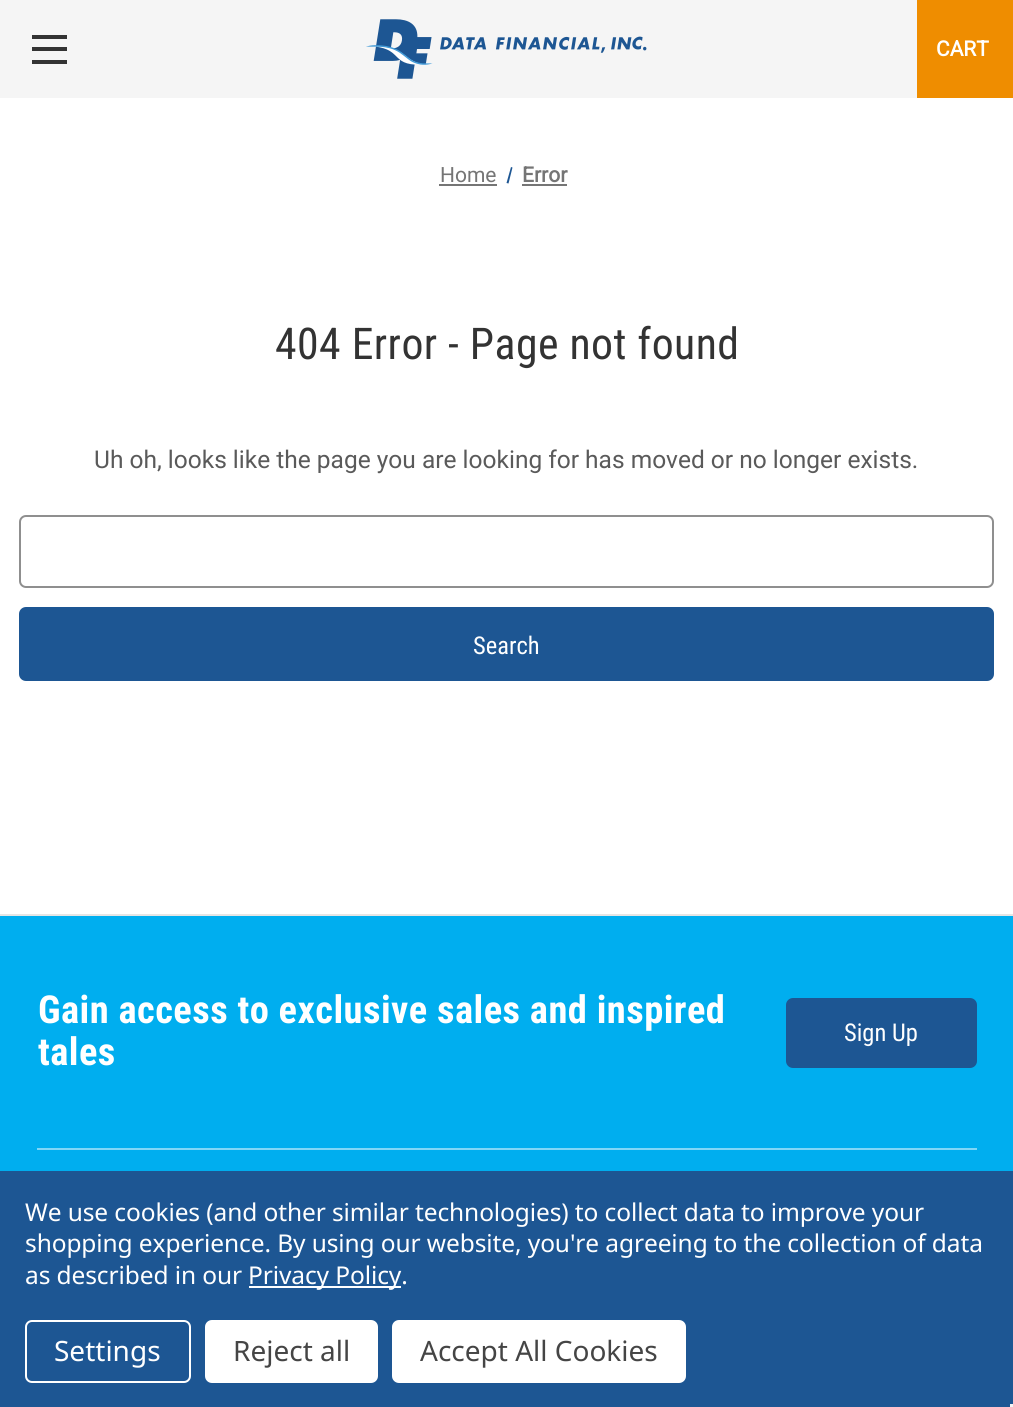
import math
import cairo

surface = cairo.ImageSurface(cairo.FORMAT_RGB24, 1013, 1407)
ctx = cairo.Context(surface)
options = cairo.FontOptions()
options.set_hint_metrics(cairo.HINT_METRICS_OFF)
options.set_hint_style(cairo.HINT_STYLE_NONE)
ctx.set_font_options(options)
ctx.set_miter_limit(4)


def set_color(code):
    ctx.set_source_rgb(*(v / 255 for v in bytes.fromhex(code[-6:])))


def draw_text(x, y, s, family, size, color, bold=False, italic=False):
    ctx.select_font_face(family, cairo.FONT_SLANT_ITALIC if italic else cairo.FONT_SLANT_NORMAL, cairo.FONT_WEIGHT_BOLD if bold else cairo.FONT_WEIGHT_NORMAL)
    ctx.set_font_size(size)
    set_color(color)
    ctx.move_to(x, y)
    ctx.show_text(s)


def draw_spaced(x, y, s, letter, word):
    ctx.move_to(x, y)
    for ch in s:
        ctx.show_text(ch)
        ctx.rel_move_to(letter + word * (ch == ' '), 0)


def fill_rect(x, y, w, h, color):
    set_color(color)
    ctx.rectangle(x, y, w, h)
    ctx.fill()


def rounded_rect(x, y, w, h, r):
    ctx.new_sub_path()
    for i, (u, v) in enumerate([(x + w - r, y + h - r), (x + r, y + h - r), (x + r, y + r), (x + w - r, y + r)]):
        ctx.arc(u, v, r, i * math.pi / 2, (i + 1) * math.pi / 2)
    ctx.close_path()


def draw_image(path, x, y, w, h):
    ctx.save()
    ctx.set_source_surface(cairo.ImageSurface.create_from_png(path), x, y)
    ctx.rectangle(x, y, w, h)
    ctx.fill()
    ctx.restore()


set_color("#ffffff")
ctx.paint()
fill_rect(0, 0, 917, 98, "#f5f5f5")
draw_image("assets/img1.png", 366, 19, 281, 60)
fill_rect(32, 47, 35, 4, "#333333")
fill_rect(32, 35, 35, 4, "#333333")
fill_rect(32, 60, 35, 4, "#333333")
fill_rect(917, 0, 96, 98, "#ef8d00")
draw_text(936, 56, "CART", "Roboto", 21, "#ffffff", bold=True)
draw_text(440, 182, "Home", "Roboto", 21, "#757575")
fill_rect(439, 184, 58, 2, "#757575")
set_color("#1d5693")
ctx.new_path()
ctx.move_to(511, 167)
ctx.line_to(512.5, 167.5)
ctx.line_to(508.5, 183.5)
ctx.line_to(506.5, 183)
ctx.close_path()
ctx.fill()
draw_text(522, 182, "Error", "Roboto", 21, "#757575", bold=True)
fill_rect(522, 184, 45, 2, "#757575")
ctx.select_font_face("Roboto Condensed")
ctx.set_font_size(43.75)
set_color("#333333")
draw_spaced(275, 359, "404 Error - Page not found", 0.45, 0)
draw_text(94, 468, "Uh oh, looks like the page you are looking for has moved or no longer exists.", "Roboto", 24.5, "#5a5a5a")
rounded_rect(20, 516, 973, 71, 6)
set_color("#8f8f8f")
ctx.stroke()
set_color("#1d5693")
rounded_rect(20, 608, 973, 72, 6)
ctx.fill_preserve()
ctx.stroke()
draw_text(473, 654, "Search", "Roboto Condensed", 24.5, "#ffffff")
fill_rect(0, 916, 1013, 255, "#00aeef")
fill_rect(0, 914, 1013, 2, "#e5e5e5")
fill_rect(37, 1148, 940, 2, "#80d7f7")
ctx.select_font_face("Roboto Condensed", cairo.FONT_SLANT_NORMAL, cairo.FONT_WEIGHT_BOLD)
ctx.set_font_size(38.5)
set_color("#ffffff")
draw_spaced(38, 1023, "Gain access to exclusive sales and inspired", 0.45, 0)
draw_spaced(38, 1065, "tales", 0.45, 0)
set_color("#1d5693")
rounded_rect(787, 999, 189, 68, 6)
ctx.fill_preserve()
ctx.stroke()
draw_text(844, 1041, "Sign Up", "Roboto Condensed", 24.5, "#ffffff")
fill_rect(0, 1171, 1013, 236, "#1d5693")
ctx.select_font_face("Noto Sans")
set_color("#ffffff")
draw_spaced(25, 1221, "We use cookies (and other similar technologies) to collect data to improve your", -0.1, 0)
draw_spaced(25, 1252, "shopping experience. By using our website, you're agreeing to the collection of data", -0.1, 0)
draw_spaced(25, 1284, "as described in our", -0.1, 0)
fill_rect(249, 1286, 152, 2, "#ffffff")
draw_spaced(248, 1284, "Privacy Policy.", -0.1, 0)
rounded_rect(26, 1321, 164, 61, 6)
ctx.stroke()
draw_text(54, 1361, "Settings", "Noto Sans", 28, "#ffffff")
rounded_rect(205, 1320, 173, 63, 7)
ctx.fill()
draw_text(233, 1361, "Reject all", "Noto Sans", 28, "#454545")
set_color("#ffffff")
rounded_rect(392, 1320, 294, 63, 7)
ctx.fill()
draw_text(420, 1361, "Accept All Cookies", "Noto Sans", 28, "#454545")
fill_rect(1010, 1404, 3, 3, "#f5f5f5")
surface.write_to_png("output.png")
